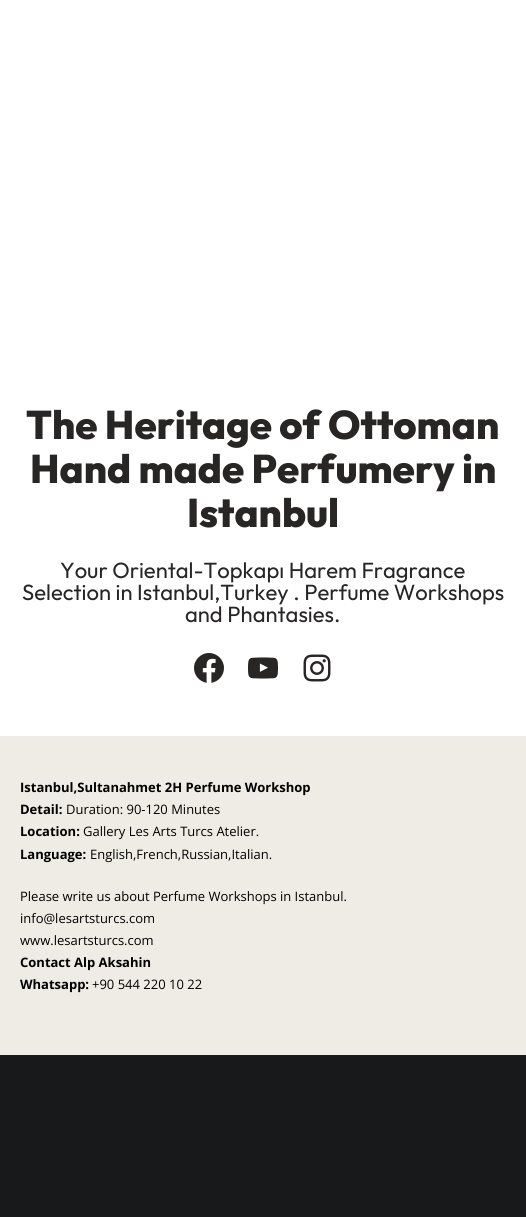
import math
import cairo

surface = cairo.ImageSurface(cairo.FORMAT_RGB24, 526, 1217)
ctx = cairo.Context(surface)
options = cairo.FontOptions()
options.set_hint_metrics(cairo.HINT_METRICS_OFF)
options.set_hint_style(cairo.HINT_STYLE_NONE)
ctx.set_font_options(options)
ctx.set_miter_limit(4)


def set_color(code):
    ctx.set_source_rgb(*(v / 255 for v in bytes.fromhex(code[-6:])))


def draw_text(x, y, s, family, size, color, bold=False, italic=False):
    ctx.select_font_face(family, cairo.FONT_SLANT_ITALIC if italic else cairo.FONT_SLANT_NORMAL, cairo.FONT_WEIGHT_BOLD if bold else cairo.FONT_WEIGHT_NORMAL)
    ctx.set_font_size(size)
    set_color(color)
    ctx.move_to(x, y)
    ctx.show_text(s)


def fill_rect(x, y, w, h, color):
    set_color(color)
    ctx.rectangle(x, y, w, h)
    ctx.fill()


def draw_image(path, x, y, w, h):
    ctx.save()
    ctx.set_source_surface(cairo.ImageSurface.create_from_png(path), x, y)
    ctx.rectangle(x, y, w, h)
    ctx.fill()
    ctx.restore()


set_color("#18191b")
ctx.paint()
fill_rect(0, 0, 526, 736, "#ffffff")
draw_text(26, 439, "The Heritage of Ottoman", "Outfit ExtraBold", 40, "#282525")
draw_text(30, 483, "Hand made Perfumery in", "Outfit ExtraBold", 40, "#282525")
draw_text(187, 527, "Istanbul", "Outfit ExtraBold", 40, "#282525")
draw_text(60, 578, "Your Oriental-Topkapı Harem Fragrance", "Outfit", 22, "#282525")
draw_text(22, 600, "Selection in Istanbul,Turkey . Perfume Workshops", "Outfit", 22, "#282525")
draw_text(185, 622, "and Phantasies.", "Outfit", 22, "#282525")
draw_image("assets/img1.png", 194, 653, 30, 30)
draw_image("assets/img2.png", 248, 657, 30, 22)
draw_image("assets/img3.png", 303, 654, 28, 28)
fill_rect(0, 736, 526, 319, "#efece5")
draw_text(20, 792, "Istanbul,Sultanahmet 2H Perfume Workshop", "Open Sans", 13, "#000000", bold=True)
draw_text(20, 814, "Detail:", "Open Sans", 13, "#000000", bold=True)
draw_text(66, 814, "Duration: 90-120 Minutes", "Open Sans", 13, "#000000")
draw_text(20, 836, "Location:", "Open Sans", 13, "#000000", bold=True)
draw_text(83, 836, "Gallery Les Arts Turcs Atelier.", "Open Sans", 13, "#000000")
draw_text(20, 859, "Language:", "Open Sans", 13, "#000000", bold=True)
draw_text(90, 859, "English,French,Russian,Italian.", "Open Sans", 13, "#000000")
draw_text(20, 901, "Please write us about Perfume Workshops in Istanbul.", "Open Sans", 13, "#000000")
draw_text(20, 923, "info@lesartsturcs.com", "Open Sans", 13, "#000000")
draw_text(20, 945, "www.lesartsturcs.com", "Open Sans", 13, "#000000")
draw_text(20, 967, "Contact Alp Aksahin", "Open Sans", 13, "#000000", bold=True)
draw_text(20, 989, "Whatsapp:", "Open Sans", 13, "#000000", bold=True)
draw_text(92, 989, "+90 544 220 10 22", "Open Sans", 13, "#000000")
surface.write_to_png("output.png")
